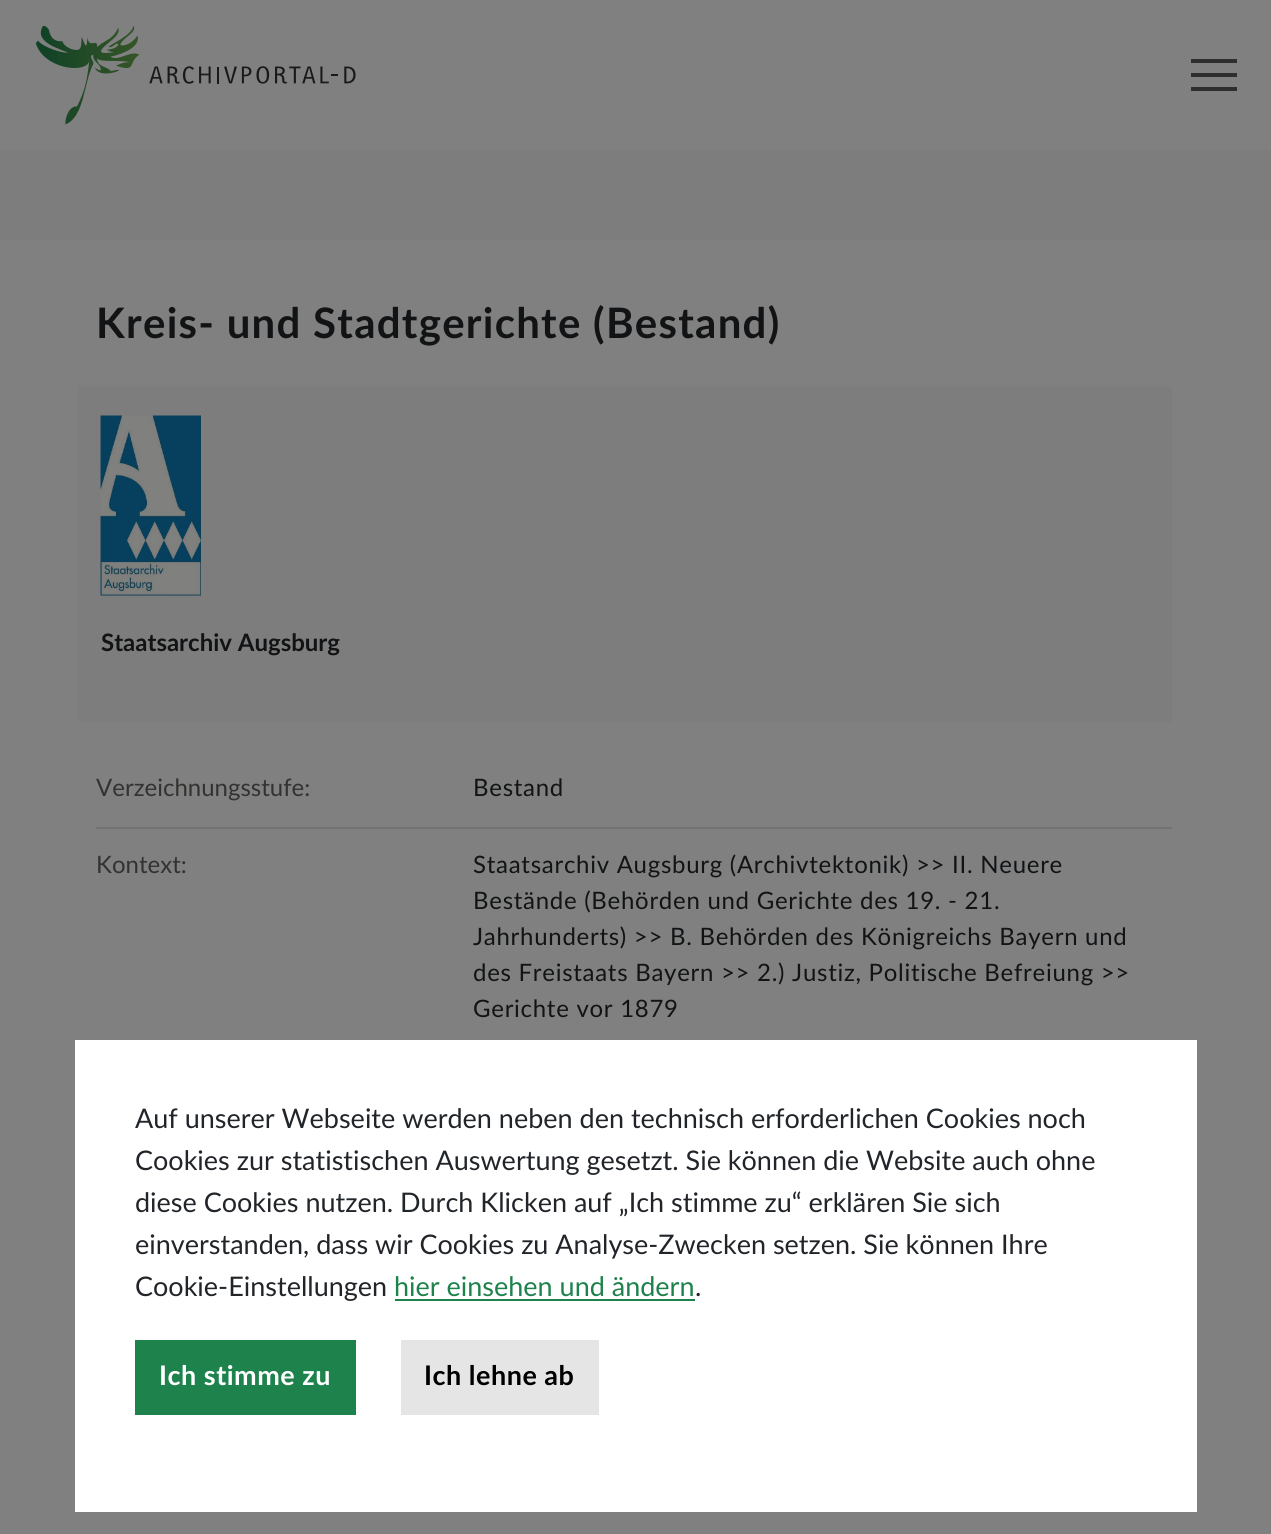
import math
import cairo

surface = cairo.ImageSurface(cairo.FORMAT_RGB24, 1271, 1534)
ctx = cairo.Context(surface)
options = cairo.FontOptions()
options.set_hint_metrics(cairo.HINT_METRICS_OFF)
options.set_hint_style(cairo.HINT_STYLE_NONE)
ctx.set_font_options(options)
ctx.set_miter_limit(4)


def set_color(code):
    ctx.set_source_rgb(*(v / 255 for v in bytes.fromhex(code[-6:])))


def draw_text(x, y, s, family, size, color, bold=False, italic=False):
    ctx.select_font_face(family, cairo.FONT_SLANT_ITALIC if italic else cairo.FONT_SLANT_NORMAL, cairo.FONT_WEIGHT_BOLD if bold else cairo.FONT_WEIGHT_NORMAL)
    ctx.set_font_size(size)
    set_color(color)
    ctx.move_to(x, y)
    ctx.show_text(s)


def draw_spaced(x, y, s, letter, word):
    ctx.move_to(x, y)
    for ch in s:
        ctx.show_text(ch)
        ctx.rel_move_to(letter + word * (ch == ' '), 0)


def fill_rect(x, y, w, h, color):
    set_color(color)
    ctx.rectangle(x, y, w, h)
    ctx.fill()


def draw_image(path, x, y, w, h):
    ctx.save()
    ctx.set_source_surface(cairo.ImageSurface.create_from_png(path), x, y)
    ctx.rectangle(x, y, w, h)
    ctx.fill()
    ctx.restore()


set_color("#808080")
ctx.paint()
draw_image("assets/img1.png", 36, 26, 320, 99)
set_color("#2e2e2e")
ctx.set_fill_rule(cairo.FILL_RULE_EVEN_ODD)
ctx.new_path()
ctx.move_to(1237, 63)
ctx.line_to(1191, 63)
ctx.line_to(1191, 59)
ctx.line_to(1237, 59)
ctx.close_path()
ctx.move_to(1237, 77)
ctx.line_to(1191, 77)
ctx.line_to(1191, 73)
ctx.line_to(1237, 73)
ctx.close_path()
ctx.move_to(1191, 91)
ctx.line_to(1237, 91)
ctx.line_to(1237, 87)
ctx.line_to(1191, 87)
ctx.close_path()
ctx.fill()
fill_rect(0, 150, 1271, 90, "#7d7d7d")
ctx.select_font_face("Lato", cairo.FONT_SLANT_NORMAL, cairo.FONT_WEIGHT_BOLD)
ctx.set_font_size(42)
set_color("#111315")
draw_spaced(96, 338, "Kreis- und Stadtgerichte (Bestand)", 1.25, 0)
fill_rect(78, 386, 1094, 336, "#7d7d7d")
draw_image("assets/img2.png", 100, 415, 101, 181)
draw_text(101, 651, "Staatsarchiv Augsburg", "Lato", 24, "#111315", bold=True)
fill_rect(96, 827, 1076, 2, "#737373")
draw_text(96, 796, "Verzeichnungsstufe:", "Lato", 24, "#333231")
set_color("#111315")
draw_spaced(473, 796, "Bestand", 0.72, 0)
draw_text(96, 873, "Kontext:", "Lato", 24, "#333231")
set_color("#111315")
draw_spaced(473, 873, "Staatsarchiv Augsburg (Archivtektonik) >> II. Neuere", 0.72, 0)
draw_spaced(473, 909, "Bestände (Behörden und Gerichte des 19. - 21.", 0.72, 0)
draw_spaced(473, 945, "Jahrhunderts) >> B. Behörden des Königreichs Bayern und", 0.72, 0)
draw_spaced(473, 981, "des Freistaats Bayern >> 2.) Justiz, Politische Befreiung >>", 0.72, 0)
draw_spaced(473, 1017, "Gerichte vor 1879", 0.72, 0)
fill_rect(75, 1040, 1122, 472, "#ffffff")
draw_text(135, 1128, "Auf unserer Webseite werden neben den technisch erforderlichen Cookies noch", "Lato", 27, "#212529")
draw_text(135, 1170, "Cookies zur statistischen Auswertung gesetzt. Sie können die Website auch ohne", "Lato", 27, "#212529")
draw_text(135, 1212, "diese Cookies nutzen. Durch Klicken auf „Ich stimme zu“ erklären Sie sich", "Lato", 27, "#212529")
draw_text(135, 1254, "einverstanden, dass wir Cookies zu Analyse-Zwecken setzen. Sie können Ihre", "Lato", 27, "#212529")
draw_text(135, 1296, "Cookie-Einstellungen", "Lato", 27, "#212529")
draw_text(394, 1296, "hier einsehen und ändern", "Lato", 27, "#1e824c")
fill_rect(395, 1299, 300, 2, "#1e824c")
draw_text(695, 1296, ".", "Lato", 27, "#212529")
fill_rect(135, 1340, 221, 75, "#1e824c")
ctx.select_font_face("Lato", cairo.FONT_SLANT_NORMAL, cairo.FONT_WEIGHT_BOLD)
set_color("#ffffff")
draw_spaced(159, 1385, "Ich stimme zu", 0.5, 0)
fill_rect(401, 1340, 198, 75, "#e5e5e5")
set_color("#000000")
draw_spaced(424, 1385, "Ich lehne ab", 0.5, 0)
surface.write_to_png("output.png")
